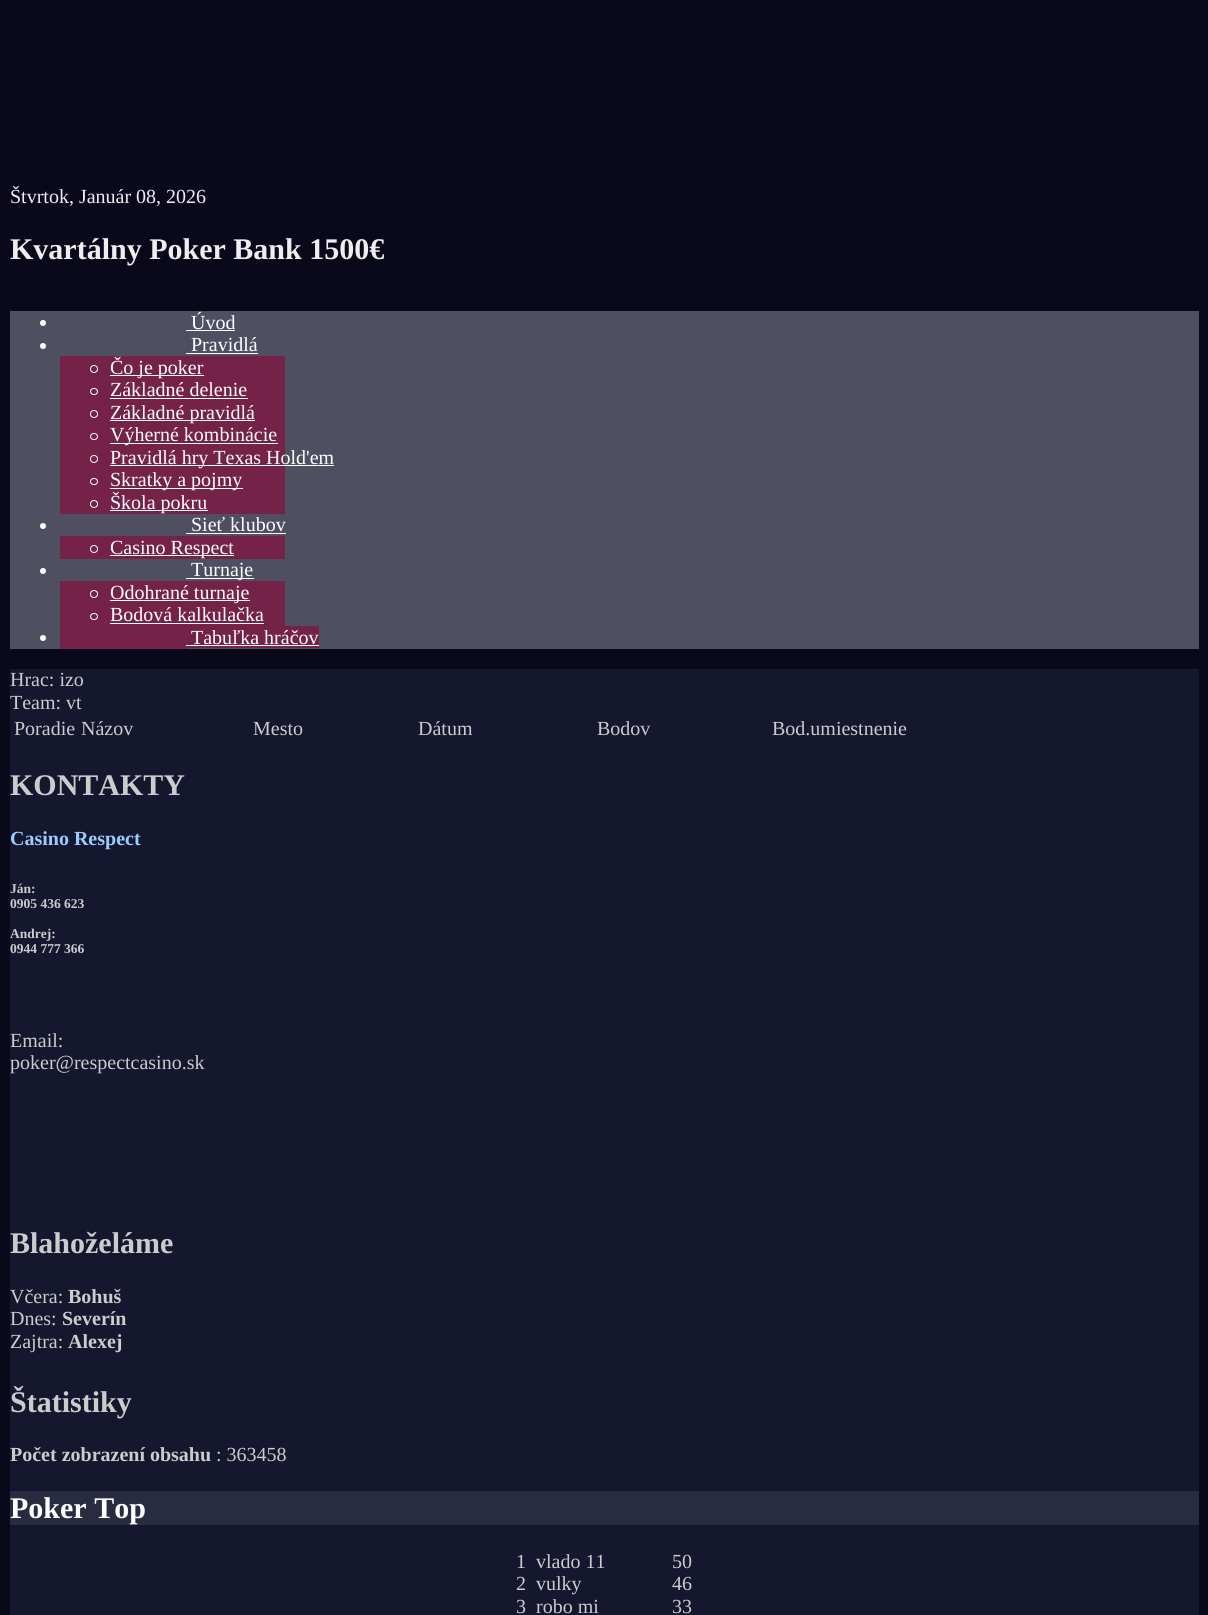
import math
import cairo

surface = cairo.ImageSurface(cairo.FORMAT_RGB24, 1208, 1615)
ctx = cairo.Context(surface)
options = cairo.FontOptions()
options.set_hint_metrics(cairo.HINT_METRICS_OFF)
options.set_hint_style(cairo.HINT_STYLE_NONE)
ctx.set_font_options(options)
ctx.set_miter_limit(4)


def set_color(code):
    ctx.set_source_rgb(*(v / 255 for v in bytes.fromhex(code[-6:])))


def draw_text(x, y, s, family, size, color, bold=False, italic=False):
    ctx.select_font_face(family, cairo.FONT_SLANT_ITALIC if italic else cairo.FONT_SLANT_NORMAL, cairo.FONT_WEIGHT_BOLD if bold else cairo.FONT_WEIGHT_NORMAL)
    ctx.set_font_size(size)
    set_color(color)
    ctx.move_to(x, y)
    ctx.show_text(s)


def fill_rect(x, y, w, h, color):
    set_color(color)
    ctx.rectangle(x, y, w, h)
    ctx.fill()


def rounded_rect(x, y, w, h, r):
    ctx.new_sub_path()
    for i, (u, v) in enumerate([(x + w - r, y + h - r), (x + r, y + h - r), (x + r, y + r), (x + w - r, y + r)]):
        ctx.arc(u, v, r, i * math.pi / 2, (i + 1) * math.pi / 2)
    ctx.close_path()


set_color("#0a091b")
ctx.paint()
draw_text(10, 203, "Štvrtok, Január 08, 2026", "Liberation Serif", 20, "#eeeeee")
draw_text(10, 259, "Kvartálny Poker Bank 1500€", "Liberation Serif", 30, "#eeeeee", bold=True)
fill_rect(10, 311, 1189, 338, "#4e5061")
set_color("#ffffff")
ctx.new_path()
ctx.arc(43, 323, 3, 0, 2 * math.pi)
ctx.fill()
draw_text(191, 329, "Úvod", "Liberation Serif", 20, "#ffffff")
fill_rect(186, 330, 49, 1, "#ffffff")
ctx.new_path()
ctx.arc(43, 346, 3, 0, 2 * math.pi)
ctx.fill()
draw_text(191, 351, "Pravidlá", "Liberation Serif", 20, "#ffffff")
fill_rect(186, 353, 72, 1, "#ffffff")
fill_rect(60, 356, 225, 158, "#742247")
ctx.new_path()
ctx.arc(94, 369, 3.5, 0, 2 * math.pi)
set_color("#ffffff")
ctx.set_line_width(1)
ctx.stroke()
fill_rect(110, 375, 94, 1, "#ffffff")
draw_text(110, 374, "Čo je poker", "Liberation Serif", 20, "#ffffff")
rounded_rect(90.5, 388.5, 7, 6, 3)
ctx.stroke()
draw_text(110, 396, "Základné delenie", "Liberation Serif", 20, "#ffffff")
fill_rect(110, 398, 138, 1, "#ffffff")
ctx.new_path()
ctx.arc(94, 414, 3.5, 0, 2 * math.pi)
ctx.stroke()
fill_rect(110, 420, 145, 1, "#ffffff")
draw_text(110, 419, "Základné pravidlá", "Liberation Serif", 20, "#ffffff")
rounded_rect(90.5, 433.5, 7, 6, 3)
ctx.stroke()
fill_rect(110, 443, 168, 1, "#ffffff")
draw_text(110, 441, "Výherné kombinácie", "Liberation Serif", 20, "#ffffff")
ctx.new_path()
ctx.arc(94, 459, 3.5, 0, 2 * math.pi)
ctx.stroke()
fill_rect(110, 465, 224, 1, "#ffffff")
draw_text(110, 464, "Pravidlá hry Texas Hold'em", "Liberation Serif", 20, "#ffffff")
rounded_rect(90.5, 478.5, 7, 6, 3)
ctx.stroke()
fill_rect(110, 488, 133, 1, "#ffffff")
draw_text(110, 486, "Skratky a pojmy", "Liberation Serif", 20, "#ffffff")
ctx.new_path()
ctx.arc(94, 504, 3.5, 0, 2 * math.pi)
ctx.stroke()
fill_rect(110, 510, 98, 1, "#ffffff")
draw_text(110, 509, "Škola pokru", "Liberation Serif", 20, "#ffffff")
ctx.new_path()
ctx.arc(43, 526, 3, 0, 2 * math.pi)
ctx.fill()
draw_text(191, 531, "Sieť klubov", "Liberation Serif", 20, "#ffffff")
fill_rect(186, 533, 100, 1, "#ffffff")
fill_rect(60, 536, 225, 23, "#742247")
ctx.new_path()
ctx.arc(94, 549, 3.5, 0, 2 * math.pi)
set_color("#ffffff")
ctx.stroke()
fill_rect(110, 555, 124, 1, "#ffffff")
draw_text(110, 554, "Casino Respect", "Liberation Serif", 20, "#ffffff")
ctx.new_path()
ctx.arc(43, 571, 3, 0, 2 * math.pi)
ctx.fill()
fill_rect(186, 578, 68, 1, "#ffffff")
draw_text(191, 576, "Turnaje", "Liberation Serif", 20, "#ffffff")
fill_rect(60, 581, 225, 45, "#742247")
ctx.new_path()
ctx.arc(94, 594, 3.5, 0, 2 * math.pi)
set_color("#ffffff")
ctx.stroke()
fill_rect(110, 600, 140, 1, "#ffffff")
draw_text(110, 599, "Odohrané turnaje", "Liberation Serif", 20, "#ffffff")
rounded_rect(90.5, 613.5, 7, 6, 3)
ctx.stroke()
draw_text(110, 621, "Bodová kalkulačka", "Liberation Serif", 20, "#ffffff")
fill_rect(110, 623, 154, 1, "#ffffff")
ctx.new_path()
ctx.arc(43, 638, 3, 0, 2 * math.pi)
ctx.fill()
fill_rect(186, 626, 133, 22, "#742247")
draw_text(191, 644, "Tabuľka hráčov", "Liberation Serif", 20, "#ffffff")
fill_rect(60, 626, 126, 23, "#742247")
fill_rect(186, 645, 133, 1, "#ffffff")
fill_rect(10, 669, 1189, 946, "#15172f")
draw_text(10, 686, "Hrac: izo", "Liberation Serif", 20, "#cccccc")
draw_text(10, 709, "Team: vt", "Liberation Serif", 20, "#cccccc")
draw_text(14, 735, "Poradie", "Liberation Serif", 20, "#cccccc")
draw_text(81, 735, "Názov", "Liberation Serif", 20, "#cccccc")
draw_text(253, 735, "Mesto", "Liberation Serif", 20, "#cccccc")
draw_text(418, 735, "Dátum", "Liberation Serif", 20, "#cccccc")
draw_text(597, 735, "Bodov", "Liberation Serif", 20, "#cccccc")
draw_text(772, 735, "Bod.umiestnenie", "Liberation Serif", 20, "#cccccc")
draw_text(10, 795, "KONTAKTY", "Liberation Serif", 30, "#cccccc", bold=True)
draw_text(10, 845, "Casino Respect", "Liberation Serif", 20, "#99ccff", bold=True)
draw_text(10, 893, "Ján:", "Liberation Serif", 13.5, "#cccccc", bold=True)
draw_text(10, 908, "0905 436 623", "Liberation Serif", 13.5, "#cccccc", bold=True)
draw_text(10, 938, "Andrej:", "Liberation Serif", 13.5, "#cccccc", bold=True)
draw_text(10, 953, "0944 777 366", "Liberation Serif", 13.5, "#cccccc", bold=True)
draw_text(10, 1047, "Email:", "Liberation Serif", 20, "#cccccc")
draw_text(10, 1069, "poker@respectcasino.sk", "Liberation Serif", 20, "#cccccc")
draw_text(10, 1253, "Blahoželáme", "Liberation Serif", 30, "#cccccc", bold=True)
draw_text(10, 1303, "Včera:", "Liberation Serif", 20, "#cccccc")
draw_text(68, 1303, "Bohuš", "Liberation Serif", 20, "#cccccc", bold=True)
draw_text(10, 1325, "Dnes:", "Liberation Serif", 20, "#cccccc")
draw_text(62, 1325, "Severín", "Liberation Serif", 20, "#cccccc", bold=True)
draw_text(10, 1348, "Zajtra:", "Liberation Serif", 20, "#cccccc")
draw_text(68, 1348, "Alexej", "Liberation Serif", 20, "#cccccc", bold=True)
draw_text(10, 1412, "Štatistiky", "Liberation Serif", 30, "#cccccc", bold=True)
draw_text(10, 1461, "Počet zobrazení obsahu", "Liberation Serif", 20, "#cccccc", bold=True)
draw_text(216, 1461, ": 363458", "Liberation Serif", 20, "#cccccc")
fill_rect(10, 1491, 1189, 34, "#292b40")
draw_text(10, 1518, "Poker Top", "Liberation Serif", 30, "#ffffff", bold=True)
draw_text(516, 1568, "1", "Liberation Serif", 20, "#cccccc")
draw_text(536, 1568, "vlado 11", "Liberation Serif", 20, "#cccccc")
draw_text(672, 1568, "50", "Liberation Serif", 20, "#cccccc")
draw_text(516, 1590, "2", "Liberation Serif", 20, "#cccccc")
draw_text(536, 1590, "vulky", "Liberation Serif", 20, "#cccccc")
draw_text(672, 1590, "46", "Liberation Serif", 20, "#cccccc")
draw_text(516, 1613, "3", "Liberation Serif", 20, "#cccccc")
draw_text(536, 1613, "robo mi", "Liberation Serif", 20, "#cccccc")
draw_text(672, 1613, "33", "Liberation Serif", 20, "#cccccc")
surface.write_to_png("output.png")
